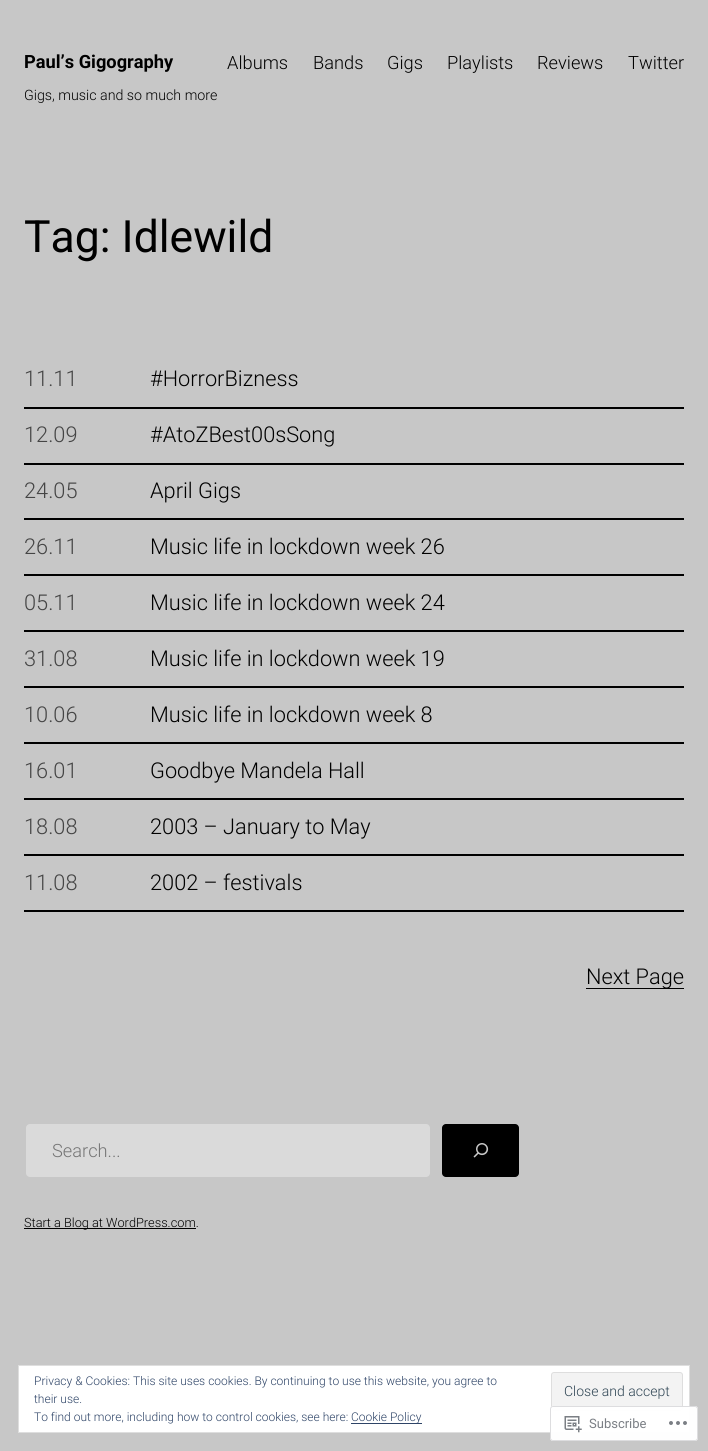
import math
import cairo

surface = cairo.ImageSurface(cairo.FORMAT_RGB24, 708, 1451)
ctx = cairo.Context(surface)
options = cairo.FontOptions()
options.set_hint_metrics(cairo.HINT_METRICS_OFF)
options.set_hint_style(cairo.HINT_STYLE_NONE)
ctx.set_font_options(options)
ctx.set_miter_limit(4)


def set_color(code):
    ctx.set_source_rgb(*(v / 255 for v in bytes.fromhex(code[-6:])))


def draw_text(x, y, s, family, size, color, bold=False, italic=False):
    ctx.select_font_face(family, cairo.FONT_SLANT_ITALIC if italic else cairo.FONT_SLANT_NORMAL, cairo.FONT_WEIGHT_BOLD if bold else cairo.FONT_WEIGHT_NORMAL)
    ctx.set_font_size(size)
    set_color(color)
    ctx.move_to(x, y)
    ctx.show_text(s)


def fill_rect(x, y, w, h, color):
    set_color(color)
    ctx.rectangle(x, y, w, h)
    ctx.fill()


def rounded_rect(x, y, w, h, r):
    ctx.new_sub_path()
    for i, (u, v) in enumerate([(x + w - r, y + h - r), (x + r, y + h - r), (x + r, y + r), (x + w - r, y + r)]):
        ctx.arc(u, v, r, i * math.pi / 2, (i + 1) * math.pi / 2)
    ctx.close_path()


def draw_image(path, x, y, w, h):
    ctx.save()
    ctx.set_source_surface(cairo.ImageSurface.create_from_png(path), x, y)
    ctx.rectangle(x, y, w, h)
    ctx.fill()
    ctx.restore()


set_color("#c7c7c7")
ctx.paint()
draw_text(24, 68, "Paul’s Gigography", "Roboto", 18.25, "#000000", bold=True)
draw_text(227, 69, "Albums", "Roboto Light", 18.25, "#000000")
draw_text(313, 69, "Bands", "Roboto Light", 18.25, "#000000")
draw_text(387, 69, "Gigs", "Roboto Light", 18.25, "#000000")
draw_text(447, 69, "Playlists", "Roboto Light", 18.25, "#000000")
draw_text(537, 69, "Reviews", "Roboto Light", 18.25, "#000000")
draw_text(628, 69, "Twitter", "Roboto Light", 18.25, "#000000")
draw_text(24, 100, "Gigs, music and so much more", "Roboto Light", 14.25, "#000000")
draw_text(24, 252, "Tag: Idlewild", "Roboto", 44.5, "#000000")
fill_rect(24, 407, 660, 2, "#000000")
draw_text(24, 386, "11.11", "Roboto Light", 21.75, "#454545")
draw_text(150, 386, "#HorrorBizness", "Roboto Light", 21.75, "#000000")
fill_rect(24, 463, 660, 2, "#000000")
draw_text(24, 442, "12.09", "Roboto Light", 21.75, "#454545")
draw_text(150, 442, "#AtoZBest00sSong", "Roboto Light", 21.75, "#000000")
fill_rect(24, 518, 660, 2, "#000000")
draw_text(24, 498, "24.05", "Roboto Light", 21.75, "#454545")
draw_text(150, 498, "April Gigs", "Roboto Light", 21.75, "#000000")
fill_rect(24, 574, 660, 2, "#000000")
draw_text(24, 554, "26.11", "Roboto Light", 21.75, "#454545")
draw_text(150, 554, "Music life in lockdown week 26", "Roboto Light", 21.75, "#000000")
fill_rect(24, 630, 660, 2, "#000000")
draw_text(24, 610, "05.11", "Roboto Light", 21.75, "#454545")
draw_text(150, 610, "Music life in lockdown week 24", "Roboto Light", 21.75, "#000000")
fill_rect(24, 686, 660, 2, "#000000")
draw_text(24, 666, "31.08", "Roboto Light", 21.75, "#454545")
draw_text(150, 666, "Music life in lockdown week 19", "Roboto Light", 21.75, "#000000")
fill_rect(24, 742, 660, 2, "#000000")
draw_text(24, 722, "10.06", "Roboto Light", 21.75, "#454545")
draw_text(150, 722, "Music life in lockdown week 8", "Roboto Light", 21.75, "#000000")
fill_rect(24, 798, 660, 2, "#000000")
draw_text(24, 778, "16.01", "Roboto Light", 21.75, "#454545")
draw_text(150, 778, "Goodbye Mandela Hall", "Roboto Light", 21.75, "#000000")
fill_rect(24, 854, 660, 2, "#000000")
draw_text(24, 834, "18.08", "Roboto Light", 21.75, "#454545")
draw_text(150, 834, "2003 – January to May", "Roboto Light", 21.75, "#000000")
fill_rect(24, 910, 660, 2, "#000000")
draw_text(24, 890, "11.08", "Roboto Light", 21.75, "#454545")
draw_text(150, 890, "2002 – festivals", "Roboto Light", 21.75, "#000000")
fill_rect(586, 988, 98, 1, "#000000")
draw_text(586, 984, "Next Page", "Roboto Light", 21.75, "#000000")
set_color("#dadada")
rounded_rect(26, 1124, 404, 53, 4)
ctx.fill()
draw_text(52, 1157, "Search...", "Roboto Light", 18.25, "#757575")
set_color("#000000")
rounded_rect(442, 1124, 77, 53, 4)
ctx.fill()
draw_image("assets/img1.png", 473, 1143, 16, 15)
fill_rect(24, 1228, 172, 1, "#000000")
draw_text(24, 1227, "Start a Blog at WordPress.com.", "Roboto Light", 12.75, "#000000")
set_color("#ffffff")
ctx.rectangle(18.5, 1365.5, 671, 67)
ctx.fill_preserve()
set_color("#dedede")
ctx.set_line_width(1)
ctx.stroke()
draw_text(34, 1385, "Privacy & Cookies: This site uses cookies. By continuing to use this website, you agree to", "Roboto Light", 12, "#2e4467")
draw_text(34, 1403, "their use.", "Roboto Light", 12, "#2e4467")
set_color("#f3f3f3")
rounded_rect(551.5, 1372.5, 131, 38, 2.5)
ctx.fill_preserve()
set_color("#dedede")
ctx.stroke()
draw_text(564, 1396, "Close and accept", "Roboto Light", 14, "#2e4453")
draw_text(34, 1421, "To find out more, including how to control cookies, see here:", "Roboto Light", 12, "#2e4467")
fill_rect(351, 1423, 71, 1, "#2e4467")
draw_text(351, 1421, "Cookie Policy", "Roboto Light", 12, "#2e4467")
ctx.set_source_rgba(1, 1, 1, 0.98)
rounded_rect(550, 1406, 148, 35, 3)
ctx.fill()
rounded_rect(550.5, 1406.5, 147, 34, 2.5)
ctx.set_source_rgba(0.863, 0.863, 0.871, 0.98)
ctx.stroke()
draw_image("assets/img2.png", 564, 1416, 18, 17)
draw_text(589, 1428, "Subscribe", "Roboto", 13, "#7b7f85")
draw_image("assets/img3.png", 669, 1421, 18, 4)
surface.write_to_png("output.png")
